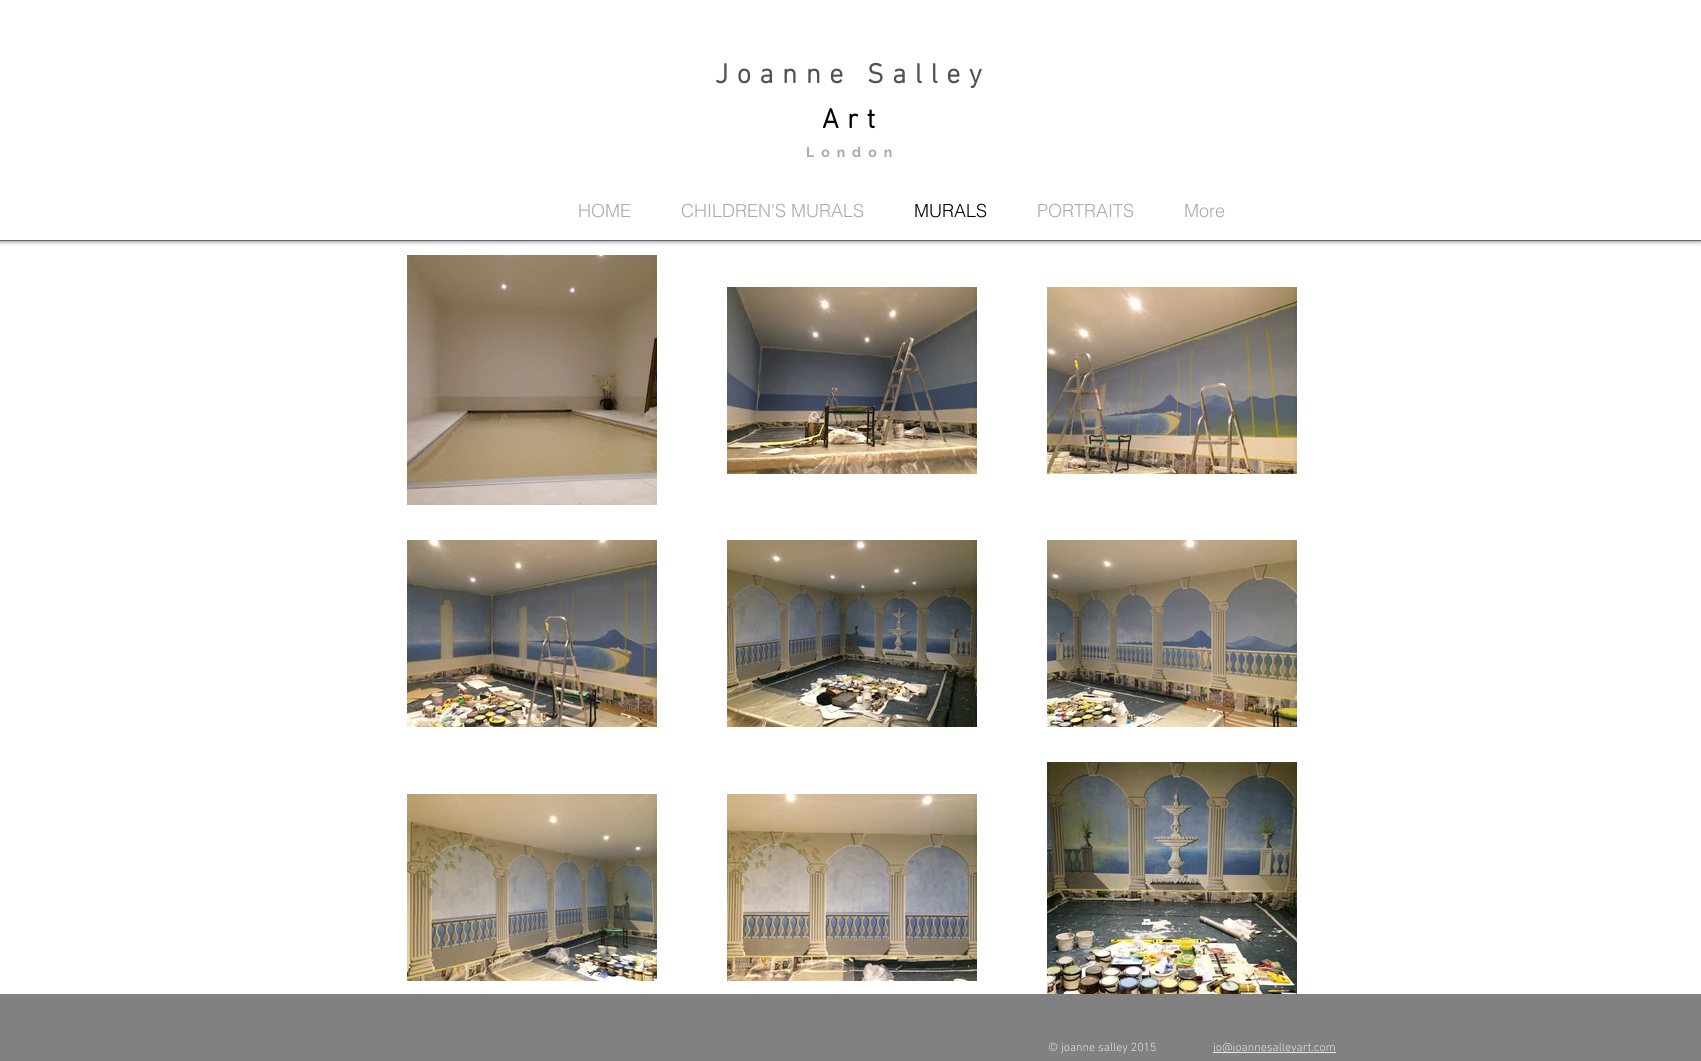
import math
import cairo

surface = cairo.ImageSurface(cairo.FORMAT_RGB24, 1701, 1061)
ctx = cairo.Context(surface)
options = cairo.FontOptions()
options.set_hint_metrics(cairo.HINT_METRICS_OFF)
options.set_hint_style(cairo.HINT_STYLE_NONE)
ctx.set_font_options(options)
ctx.set_miter_limit(4)


def set_color(code):
    ctx.set_source_rgb(*(v / 255 for v in bytes.fromhex(code[-6:])))


def draw_text(x, y, s, family, size, color, bold=False, italic=False):
    ctx.select_font_face(family, cairo.FONT_SLANT_ITALIC if italic else cairo.FONT_SLANT_NORMAL, cairo.FONT_WEIGHT_BOLD if bold else cairo.FONT_WEIGHT_NORMAL)
    ctx.set_font_size(size)
    set_color(color)
    ctx.move_to(x, y)
    ctx.show_text(s)


def draw_spaced(x, y, s, letter, word):
    ctx.move_to(x, y)
    for ch in s:
        ctx.show_text(ch)
        ctx.rel_move_to(letter + word * (ch == ' '), 0)


def fill_rect(x, y, w, h, color):
    set_color(color)
    ctx.rectangle(x, y, w, h)
    ctx.fill()


def rounded_rect(x, y, w, h, r):
    ctx.new_sub_path()
    for i, (u, v) in enumerate([(x + w - r, y + h - r), (x + r, y + h - r), (x + r, y + r), (x + w - r, y + r)]):
        ctx.arc(u, v, r, i * math.pi / 2, (i + 1) * math.pi / 2)
    ctx.close_path()


def draw_shadow(x, y, w, h, r, blur, alpha):
    ctx.push_group_with_content(cairo.CONTENT_ALPHA)
    ctx.set_operator(cairo.OPERATOR_SOURCE)
    for i in range(15, -16, -2):
        e = blur * i / 6
        if min(w, h) + 2 * e > 0:
            ctx.set_source_rgba(0, 0, 0, alpha * math.erfc((i - 1) / 8.5) / 2)
            rounded_rect(x - e, y - e, w + 2 * e, h + 2 * e, max(0, min(r + e + blur * .6, min(w, h) / 2 + e)))
            ctx.fill()
    ctx.mask(ctx.pop_group())


def draw_image(path, x, y, w, h):
    ctx.save()
    ctx.set_source_surface(cairo.ImageSurface.create_from_png(path), x, y)
    ctx.rectangle(x, y, w, h)
    ctx.fill()
    ctx.restore()


set_color("#ffffff")
ctx.paint()
ctx.save()
ctx.rectangle(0, 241, 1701, 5)
ctx.clip()
set_color("#000000")
draw_shadow(0, 0, 1701, 241, 0, 2.5, 0.6)
ctx.restore()
fill_rect(0, 240, 1701, 1, "#666666")
ctx.select_font_face("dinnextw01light", cairo.FONT_SLANT_NORMAL, cairo.FONT_WEIGHT_BOLD)
ctx.set_font_size(28)
set_color("#535151")
draw_spaced(715, 83, "Joanne Salley", 8.4, 0)
set_color("#000000")
draw_spaced(822, 128, "Art", 8.4, 0)
ctx.select_font_face("Raleway", cairo.FONT_SLANT_NORMAL, cairo.FONT_WEIGHT_BOLD)
ctx.set_font_size(14)
set_color("#abaaaa")
draw_spaced(806, 157, "London", 7, 0)
draw_text(578, 217, "HOME", "helvetica Light", 18, "#abaaaa")
draw_text(681, 217, "CHILDREN'S MURALS", "helvetica Light", 18, "#abaaaa")
draw_text(914, 217, "MURALS", "helvetica Light", 18, "#000000")
draw_text(1037, 217, "PORTRAITS", "helvetica Light", 18, "#abaaaa")
draw_text(1184, 217, "More", "helvetica Light", 18, "#abaaaa")
draw_image("assets/img1.png", 407, 255, 250, 250)
draw_image("assets/img2.png", 727, 287, 250, 187)
draw_image("assets/img3.png", 1047, 287, 250, 187)
draw_image("assets/img4.png", 407, 540, 250, 187)
draw_image("assets/img5.png", 727, 540, 250, 187)
draw_image("assets/img6.png", 1047, 540, 250, 187)
draw_image("assets/img7.png", 407, 794, 250, 187)
draw_image("assets/img8.png", 727, 794, 250, 187)
draw_image("assets/img9.png", 1047, 762, 250, 232)
fill_rect(0, 994, 1701, 67, "#818181")
draw_text(1048, 1051, "© joanne salley 2015", "dinnextw01light Light", 12, "#e6e6e6")
fill_rect(1213, 1052, 123, 1, "#e6e6e6")
draw_text(1213, 1051, "jo@joannesalleyart.com", "dinnextw01light Light", 12, "#e6e6e6")
surface.write_to_png("output.png")
